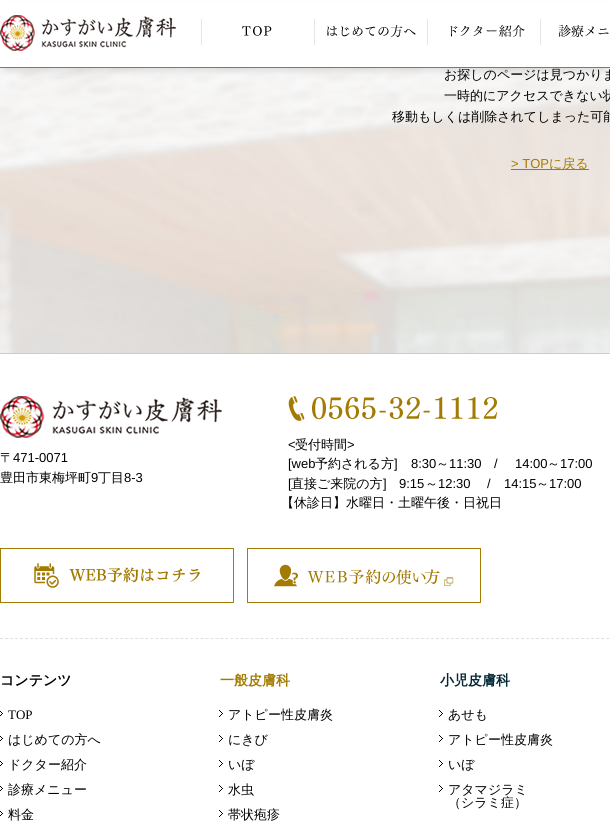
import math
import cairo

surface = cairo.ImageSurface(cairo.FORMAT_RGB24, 610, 821)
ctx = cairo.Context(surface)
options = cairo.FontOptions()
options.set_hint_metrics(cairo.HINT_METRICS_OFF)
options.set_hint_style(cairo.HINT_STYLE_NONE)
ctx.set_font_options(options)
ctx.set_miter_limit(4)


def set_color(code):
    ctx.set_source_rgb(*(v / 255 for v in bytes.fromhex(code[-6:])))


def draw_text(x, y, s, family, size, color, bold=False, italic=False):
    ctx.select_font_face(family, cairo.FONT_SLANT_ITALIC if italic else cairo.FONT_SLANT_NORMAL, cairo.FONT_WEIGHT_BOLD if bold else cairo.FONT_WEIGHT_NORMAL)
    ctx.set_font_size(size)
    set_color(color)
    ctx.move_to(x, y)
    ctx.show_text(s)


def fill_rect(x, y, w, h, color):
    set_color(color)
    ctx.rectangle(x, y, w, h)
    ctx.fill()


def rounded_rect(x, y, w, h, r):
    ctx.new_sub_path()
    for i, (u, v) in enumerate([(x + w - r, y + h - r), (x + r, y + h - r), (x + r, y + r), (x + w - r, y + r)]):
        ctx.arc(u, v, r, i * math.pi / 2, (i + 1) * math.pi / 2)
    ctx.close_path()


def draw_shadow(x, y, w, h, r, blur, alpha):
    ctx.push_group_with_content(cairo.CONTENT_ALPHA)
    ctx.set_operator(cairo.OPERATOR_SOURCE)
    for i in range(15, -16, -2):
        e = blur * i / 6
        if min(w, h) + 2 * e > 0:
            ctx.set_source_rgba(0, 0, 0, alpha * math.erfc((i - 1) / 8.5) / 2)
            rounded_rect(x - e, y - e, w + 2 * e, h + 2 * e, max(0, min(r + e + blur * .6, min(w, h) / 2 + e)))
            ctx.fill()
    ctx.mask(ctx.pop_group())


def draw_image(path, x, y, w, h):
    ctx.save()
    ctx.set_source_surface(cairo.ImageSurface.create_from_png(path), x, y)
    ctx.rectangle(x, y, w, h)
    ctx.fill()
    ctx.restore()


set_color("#ffffff")
ctx.paint()
draw_image("assets/img6.png", 0, 68, 610, 285)
set_color("#000000")
draw_shadow(6, 11, 598, 56, 0, 5.5, 0.23)
fill_rect(0, 2, 610, 65, "#ffffff")
fill_rect(0, 67, 610, 1, "#a47b02")
draw_image("assets/img1.png", 0, 15, 176, 36)
fill_rect(314, 19, 1, 26, "#e5e5e5")
fill_rect(201, 19, 1, 26, "#e5e5e5")
draw_image("assets/img2.png", 242, 26, 30, 10)
fill_rect(427, 19, 1, 26, "#e5e5e5")
draw_image("assets/img3.png", 327, 25, 89, 13)
fill_rect(540, 19, 1, 26, "#e5e5e5")
draw_image("assets/img4.png", 450, 25, 75, 12)
draw_image("assets/img5.png", 558, 25, 51, 12)
draw_text(444, 79, "お探しのページは見つかりま", "WenQuanYi Zen Hei Medium", 13, "#000000")
draw_text(444, 100, "一時的にアクセスできない状", "WenQuanYi Zen Hei Medium", 13, "#000000")
draw_text(392, 121, "移動もしくは削除されてしまった可能", "WenQuanYi Zen Hei Medium", 13, "#000000")
draw_text(511, 168, "> TOP", "Liberation Sans", 13, "#a47b02")
fill_rect(511, 169, 78, 1, "#a47b02")
draw_text(549, 168, "に戻る", "WenQuanYi Zen Hei Medium", 13, "#a47b02")
fill_rect(0, 353, 610, 1, "#cccccc")
ctx.new_path()
ctx.move_to(0, 638.5)
ctx.line_to(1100, 638.5)
set_color("#e0e0e0")
ctx.set_line_width(1)
ctx.set_dash([3, 2.01])
ctx.stroke()
draw_image("assets/img7.png", 0, 396, 222, 42)
draw_text(0, 462, "〒", "WenQuanYi Zen Hei Medium", 13, "#000000")
draw_text(13, 462, "471-0071", "Liberation Sans", 13, "#000000")
draw_text(0, 482, "豊田市東梅坪町", "WenQuanYi Zen Hei Medium", 13, "#000000")
draw_text(91, 482, "9", "Liberation Sans", 13, "#000000")
draw_text(98, 482, "丁目", "WenQuanYi Zen Hei Medium", 13, "#000000")
draw_text(124, 482, "8‐3", "Liberation Sans", 13, "#000000")
draw_image("assets/img8.png", 288, 396, 209, 25)
draw_text(288, 449, "<", "Liberation Sans", 13, "#000000")
draw_text(295, 449, "受付時間", "WenQuanYi Zen Hei Medium", 13, "#000000")
draw_text(347, 449, ">", "Liberation Sans", 13, "#000000")
draw_text(288, 468, "[web", "Liberation Sans", 13, "#000000")
draw_text(315, 468, "予約される方", "WenQuanYi Zen Hei Medium", 13, "#000000")
draw_text(394, 468, "]", "Liberation Sans", 13, "#000000")
draw_text(411, 468, "8:30", "Liberation Sans", 13, "#000000")
draw_text(436, 468, "～", "WenQuanYi Zen Hei Medium", 13, "#000000")
draw_text(449, 468, "11:30", "Liberation Sans", 13, "#000000")
draw_text(494, 468, "/", "Liberation Sans", 13, "#000000")
draw_text(515, 468, "14:00", "Liberation Sans", 13, "#000000")
draw_text(547, 468, "～", "WenQuanYi Zen Hei Medium", 13, "#000000")
draw_text(560, 468, "17:00", "Liberation Sans", 13, "#000000")
draw_text(288, 488, "[", "Liberation Sans", 13, "#000000")
draw_text(291, 488, "直接ご来院の方", "WenQuanYi Zen Hei Medium", 13, "#000000")
draw_text(383, 488, "]", "Liberation Sans", 13, "#000000")
draw_text(399, 488, "9:15", "Liberation Sans", 13, "#000000")
draw_text(425, 488, "～", "WenQuanYi Zen Hei Medium", 13, "#000000")
draw_text(438, 488, "12:30", "Liberation Sans", 13, "#000000")
draw_text(487, 488, "/", "Liberation Sans", 13, "#000000")
draw_text(504, 488, "14:15", "Liberation Sans", 13, "#000000")
draw_text(536, 488, "～", "WenQuanYi Zen Hei Medium", 13, "#000000")
draw_text(549, 488, "17:00", "Liberation Sans", 13, "#000000")
draw_text(281, 507, "【休診日】水曜日・土曜午後・日祝日", "WenQuanYi Zen Hei Medium", 13, "#000000")
draw_image("assets/img9.png", 0, 548, 234, 55)
draw_image("assets/img10.png", 247, 548, 234, 55)
draw_text(0, 685, "コンテンツ", "WenQuanYi Zen Hei", 14, "#000000", bold=True)
draw_image("assets/img11.png", 0, 711, 3, 5)
draw_text(8, 719, "TOP", "Liberation Serif", 13, "#000000")
draw_image("assets/img11.png", 0, 736, 3, 5)
draw_text(8, 744, "はじめての方へ", "WenQuanYi Zen Hei Medium", 13, "#000000")
draw_image("assets/img11.png", 0, 761, 3, 5)
draw_text(8, 769, "ドクター紹介", "WenQuanYi Zen Hei Medium", 13, "#000000")
draw_image("assets/img11.png", 0, 786, 3, 5)
draw_text(8, 794, "診療メニュー", "WenQuanYi Zen Hei Medium", 13, "#000000")
draw_image("assets/img11.png", 0, 811, 3, 5)
draw_text(8, 819, "料金", "WenQuanYi Zen Hei Medium", 13, "#000000")
draw_text(220, 685, "一般皮膚科", "WenQuanYi Zen Hei", 14, "#a47b02", bold=True)
draw_image("assets/img12.png", 219, 710, 4, 7)
draw_text(228, 719, "アトピー性皮膚炎", "WenQuanYi Zen Hei Medium", 13, "#000000")
draw_image("assets/img12.png", 219, 735, 4, 7)
draw_text(228, 744, "にきび", "WenQuanYi Zen Hei Medium", 13, "#000000")
draw_image("assets/img12.png", 219, 760, 4, 7)
draw_text(228, 769, "いぼ", "WenQuanYi Zen Hei Medium", 13, "#000000")
draw_image("assets/img12.png", 219, 785, 4, 7)
draw_text(228, 794, "水虫", "WenQuanYi Zen Hei Medium", 13, "#000000")
draw_image("assets/img12.png", 219, 810, 4, 7)
draw_text(228, 819, "帯状疱疹", "WenQuanYi Zen Hei Medium", 13, "#000000")
draw_text(440, 685, "小児皮膚科", "WenQuanYi Zen Hei", 14, "#012734", bold=True)
draw_image("assets/img12.png", 439, 710, 4, 7)
draw_text(448, 719, "あせも", "WenQuanYi Zen Hei Medium", 13, "#000000")
draw_image("assets/img12.png", 439, 735, 4, 7)
draw_text(448, 744, "アトピー性皮膚炎", "WenQuanYi Zen Hei Medium", 13, "#000000")
draw_image("assets/img12.png", 439, 760, 4, 7)
draw_text(448, 769, "いぼ", "WenQuanYi Zen Hei Medium", 13, "#000000")
draw_image("assets/img12.png", 439, 785, 4, 7)
draw_text(448, 794, "アタマジラミ", "WenQuanYi Zen Hei Medium", 13, "#000000")
draw_text(448, 807, "（シラミ症）", "WenQuanYi Zen Hei Medium", 13, "#000000")
surface.write_to_png("output.png")
